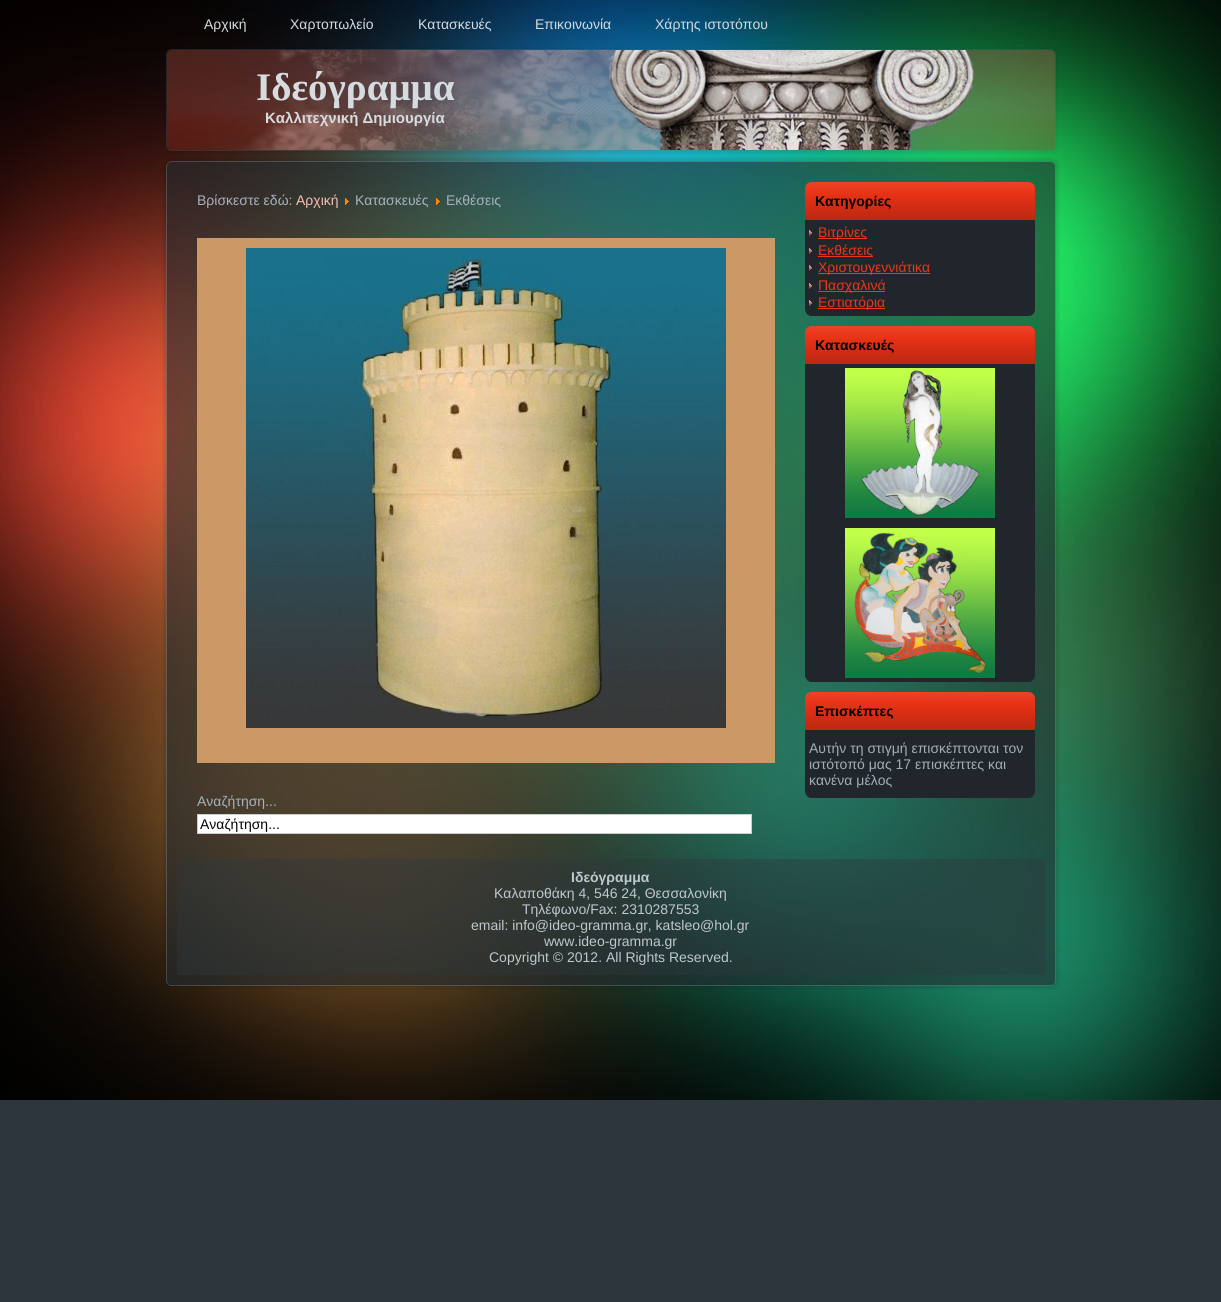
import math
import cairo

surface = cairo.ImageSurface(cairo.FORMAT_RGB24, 1221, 1302)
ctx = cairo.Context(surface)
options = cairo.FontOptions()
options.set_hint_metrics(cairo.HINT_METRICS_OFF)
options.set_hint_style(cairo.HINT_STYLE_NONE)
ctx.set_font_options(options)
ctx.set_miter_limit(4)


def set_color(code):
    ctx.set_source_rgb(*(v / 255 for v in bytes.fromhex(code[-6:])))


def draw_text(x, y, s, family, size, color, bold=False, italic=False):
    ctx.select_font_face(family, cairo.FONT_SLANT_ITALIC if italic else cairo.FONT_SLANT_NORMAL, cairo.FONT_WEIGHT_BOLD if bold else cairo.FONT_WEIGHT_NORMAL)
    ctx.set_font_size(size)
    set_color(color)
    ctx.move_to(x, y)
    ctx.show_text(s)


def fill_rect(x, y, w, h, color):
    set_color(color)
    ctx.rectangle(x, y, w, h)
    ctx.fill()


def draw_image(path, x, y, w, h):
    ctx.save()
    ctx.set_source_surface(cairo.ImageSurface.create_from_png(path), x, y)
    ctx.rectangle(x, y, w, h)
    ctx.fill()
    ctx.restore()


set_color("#2e363d")
ctx.paint()
draw_image("assets/img1.png", 0, 0, 1221, 1100)
draw_text(204, 29, "Αρχική", "Liberation Sans", 14, "#d6dbe0")
draw_text(290, 29, "Χαρτοπωλείο", "Liberation Sans", 14, "#d6dbe0")
draw_text(418, 29, "Κατασκευές", "Liberation Sans", 14, "#d6dbe0")
draw_text(535, 29, "Επικοινωνία", "Liberation Sans", 14, "#d6dbe0")
draw_text(655, 29, "Χάρτης ιστοτόπου", "Liberation Sans", 14, "#d6dbe0")
draw_image("assets/img2.png", 166, 47, 893, 107)
draw_text(256, 100, "Ιδεόγραμμα", "Liberation Serif", 39, "#d6dbe0", bold=True)
draw_text(265, 123, "Καλλιτεχνική Δημιουργία", "Liberation Sans", 15, "#d6dbe0", bold=True)
draw_image("assets/img3.png", 609, 50, 365, 100)
draw_image("assets/img4.png", 163, 159, 24, 23)
draw_image("assets/img5.png", 187, 157, 848, 25)
draw_image("assets/img6.png", 1035, 157, 25, 25)
draw_image("assets/img7.png", 162, 182, 25, 783)
ctx.set_source_rgba(0.129, 0.165, 0.184, 0.6)
ctx.rectangle(187, 182, 848, 783)
ctx.fill()
draw_image("assets/img8.png", 1035, 182, 25, 783)
draw_text(197, 205, "Βρίσκεστε εδώ:", "Liberation Sans", 14, "#a8b2bd")
draw_text(296, 205, "Αρχική", "Liberation Sans", 14, "#f8bdb4")
draw_image("assets/img9.png", 345, 198, 4, 7)
draw_text(355, 205, "Κατασκευές", "Liberation Sans", 14, "#a8b2bd")
draw_image("assets/img10.png", 436, 198, 4, 7)
draw_text(446, 205, "Εκθέσεις", "Liberation Sans", 14, "#a8b2bd")
fill_rect(197, 238, 578, 525, "#cc9966")
draw_image("assets/img11.png", 246, 248, 480, 480)
draw_text(197, 806, "Αναζήτηση...", "Liberation Sans", 14, "#a8b2bd")
set_color("#ffffff")
ctx.rectangle(197.5, 814.5, 554, 19)
ctx.fill_preserve()
set_color("#cccccc")
ctx.set_line_width(1)
ctx.stroke()
draw_text(200, 829, "Αναζήτηση...", "Liberation Sans", 14, "#000000")
draw_image("assets/img12.png", 805, 182, 224, 38)
draw_image("assets/img13.png", 1029, 182, 6, 38)
draw_text(815, 206, "Κατηγορίες", "Liberation Sans", 14, "#000000", bold=True)
fill_rect(805, 220, 7, 89, "#21262c")
fill_rect(812, 220, 223, 7, "#21262c")
draw_image("assets/img14.png", 809, 230, 3, 6)
fill_rect(812, 227, 223, 82, "#21262c")
fill_rect(818, 238, 49, 1, "#ea361a")
draw_text(818, 237, "Βιτρίνες", "Liberation Sans", 14, "#ea361a")
draw_image("assets/img14.png", 809, 248, 3, 6)
fill_rect(818, 256, 55, 1, "#ea361a")
draw_text(818, 255, "Εκθέσεις", "Liberation Sans", 14, "#ea361a")
draw_image("assets/img14.png", 809, 265, 3, 6)
fill_rect(818, 273, 112, 1, "#ea361a")
draw_text(818, 272, "Χριστουγεννιάτικα", "Liberation Sans", 14, "#ea361a")
draw_image("assets/img14.png", 809, 283, 3, 6)
fill_rect(818, 291, 67, 1, "#ea361a")
draw_text(818, 290, "Πασχαλινά", "Liberation Sans", 14, "#ea361a")
draw_image("assets/img14.png", 809, 300, 3, 6)
fill_rect(818, 308, 67, 1, "#ea361a")
fill_rect(812, 309, 216, 7, "#21262c")
draw_text(818, 307, "Εστιατόρια", "Liberation Sans", 14, "#ea361a")
draw_image("assets/img15.png", 805, 309, 7, 7)
draw_image("assets/img16.png", 1028, 309, 7, 7)
draw_image("assets/img17.png", 805, 326, 224, 38)
draw_image("assets/img18.png", 1029, 326, 6, 38)
draw_text(815, 350, "Κατασκευές", "Liberation Sans", 14, "#000000", bold=True)
fill_rect(805, 364, 7, 311, "#21262c")
fill_rect(812, 364, 223, 7, "#21262c")
fill_rect(812, 371, 223, 304, "#21262c")
draw_image("assets/img19.png", 845, 368, 150, 150)
fill_rect(812, 675, 216, 7, "#21262c")
draw_image("assets/img20.png", 845, 528, 150, 150)
draw_image("assets/img21.png", 805, 675, 7, 7)
draw_image("assets/img22.png", 1028, 675, 7, 7)
draw_image("assets/img23.png", 805, 692, 224, 38)
draw_image("assets/img24.png", 1029, 692, 6, 38)
draw_text(815, 716, "Επισκέπτες", "Liberation Sans", 14, "#000000", bold=True)
fill_rect(805, 730, 7, 61, "#21262c")
fill_rect(812, 730, 223, 7, "#21262c")
fill_rect(812, 737, 223, 54, "#21262c")
draw_text(809, 753, "Αυτήν τη στιγμή επισκέπτονται τον", "Liberation Sans", 14, "#a2adb9")
draw_text(809, 769, "ιστότοπό μας 17 επισκέπτες και", "Liberation Sans", 14, "#a2adb9")
draw_text(809, 785, "κανένα μέλος", "Liberation Sans", 14, "#a2adb9")
draw_image("assets/img25.png", 805, 791, 7, 7)
fill_rect(812, 791, 216, 7, "#21262c")
draw_image("assets/img26.png", 1028, 791, 7, 7)
draw_image("assets/img27.png", 165, 965, 22, 22)
draw_image("assets/img28.png", 187, 965, 848, 25)
draw_image("assets/img29.png", 1035, 965, 25, 25)
ctx.set_source_rgba(0.176, 0.216, 0.235, 0.4)
ctx.rectangle(177, 859, 868, 113)
ctx.fill()
draw_text(571, 882, "Ιδεόγραμμα", "Liberation Sans", 14, "#bfc7cf", bold=True)
draw_text(494, 898, "Καλαποθάκη 4, 546 24, Θεσσαλονίκη", "Liberation Sans", 14, "#bfc7cf")
draw_text(522, 914, "Τηλέφωνο/Fax: 2310287553", "Liberation Sans", 14, "#bfc7cf")
draw_text(471, 930, "email: info@ideo-gramma.gr, katsleo@hol.gr", "Liberation Sans", 14, "#bfc7cf")
draw_text(544, 946, "www.ideo-gramma.gr", "Liberation Sans", 14, "#bfc7cf")
draw_text(489, 962, "Copyright © 2012. All Rights Reserved.", "Liberation Sans", 14, "#bfc7cf")
fill_rect(177, 972, 3, 3, "#292c2c")
ctx.set_source_rgba(0.176, 0.216, 0.235, 0.4)
ctx.rectangle(180, 972, 862, 3)
ctx.fill()
fill_rect(1042, 972, 3, 3, "#244440")
surface.write_to_png("output.png")
